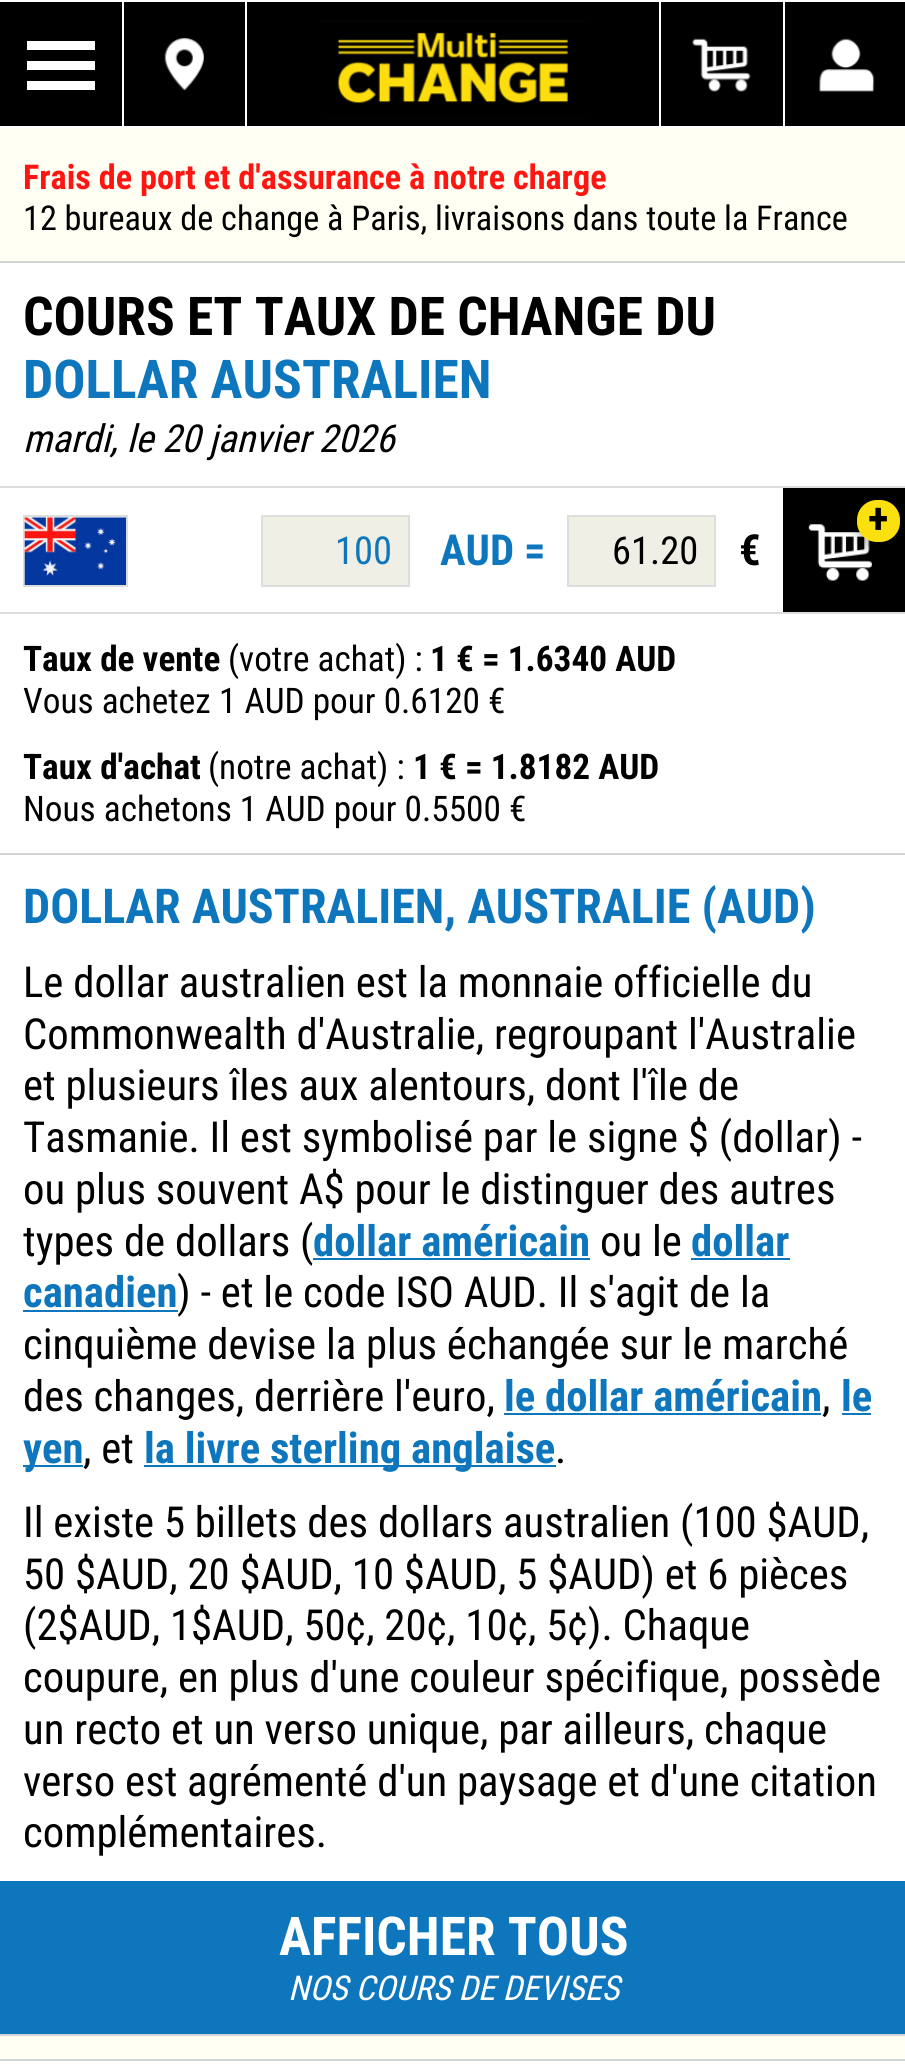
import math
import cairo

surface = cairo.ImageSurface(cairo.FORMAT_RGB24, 905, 2068)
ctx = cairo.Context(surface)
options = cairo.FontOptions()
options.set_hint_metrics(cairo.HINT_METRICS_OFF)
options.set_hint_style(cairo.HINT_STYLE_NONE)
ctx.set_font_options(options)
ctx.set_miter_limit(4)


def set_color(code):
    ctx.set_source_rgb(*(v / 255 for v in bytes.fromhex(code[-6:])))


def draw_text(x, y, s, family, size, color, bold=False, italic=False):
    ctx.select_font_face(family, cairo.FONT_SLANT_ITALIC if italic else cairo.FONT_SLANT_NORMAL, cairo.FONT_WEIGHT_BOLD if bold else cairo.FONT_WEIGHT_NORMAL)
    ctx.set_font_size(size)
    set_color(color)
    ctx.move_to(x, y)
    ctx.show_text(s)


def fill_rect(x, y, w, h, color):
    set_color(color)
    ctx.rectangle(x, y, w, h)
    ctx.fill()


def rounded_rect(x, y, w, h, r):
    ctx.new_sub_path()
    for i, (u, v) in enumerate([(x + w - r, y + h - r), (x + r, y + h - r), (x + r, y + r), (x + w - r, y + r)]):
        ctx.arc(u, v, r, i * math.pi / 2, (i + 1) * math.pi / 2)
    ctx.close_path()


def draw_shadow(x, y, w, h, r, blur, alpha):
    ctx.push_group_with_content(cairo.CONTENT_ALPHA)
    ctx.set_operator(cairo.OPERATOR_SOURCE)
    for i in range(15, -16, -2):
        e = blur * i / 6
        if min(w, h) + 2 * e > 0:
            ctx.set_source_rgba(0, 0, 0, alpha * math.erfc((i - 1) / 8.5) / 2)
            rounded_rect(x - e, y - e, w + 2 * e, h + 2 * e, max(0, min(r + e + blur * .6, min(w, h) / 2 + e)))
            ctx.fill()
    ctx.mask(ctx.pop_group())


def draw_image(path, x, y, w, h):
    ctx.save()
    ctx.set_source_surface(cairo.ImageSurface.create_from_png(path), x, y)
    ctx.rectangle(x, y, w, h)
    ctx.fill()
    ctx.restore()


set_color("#fffff4")
ctx.paint()
set_color("#000000")
ctx.rectangle(-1, 1, 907, 126)
ctx.fill_preserve()
set_color("#ffffff")
ctx.stroke()
fill_rect(122, 2, 2, 124, "#ffffff")
fill_rect(27, 41, 68, 9, "#ffffff")
fill_rect(27, 61, 68, 9, "#ffffff")
fill_rect(27, 81, 68, 9, "#ffffff")
draw_image("assets/img1.png", 164, 38, 40, 53)
fill_rect(245, 2, 2, 124, "#ffffff")
draw_image("assets/img2.png", 320, 20, 269, 99)
draw_image("assets/img3.png", 692, 38, 59, 54)
fill_rect(659, 2, 2, 124, "#ffffff")
draw_image("assets/img4.png", 819, 38, 56, 54)
fill_rect(783, 2, 2, 124, "#ffffff")
draw_text(23, 189, "Frais de port et d'assurance à notre charge", "Roboto Condensed", 34.2, "#ff1512", bold=True)
draw_text(23, 230, "12 bureaux de change à Paris, livraisons dans toute la France", "Roboto Condensed", 34.2, "#000000")
fill_rect(0, 263, 905, 1618, "#ffffff")
fill_rect(0, 261, 905, 2, "#d2d5d5")
fill_rect(0, 2034, 905, 2, "#d2d5d5")
draw_text(23, 335, "COURS ET TAUX DE CHANGE DU", "Roboto Condensed", 53.5, "#000000", bold=True)
draw_text(23, 398, "DOLLAR AUSTRALIEN", "Roboto Condensed", 53.5, "#0e76bc", bold=True)
draw_text(23, 452, "mardi, le 20 janvier 2026", "Roboto Condensed", 38.5, "#000000", italic=True)
fill_rect(0, 486, 905, 2, "#dcdedd")
fill_rect(0, 612, 905, 2, "#dcdedd")
ctx.rectangle(24, 516, 103, 70)
ctx.stroke()
draw_image("assets/img5.png", 24, 517, 102, 68)
fill_rect(783, 488, 122, 124, "#000000")
draw_image("assets/img6.png", 808, 524, 64, 57)
set_color("#000000")
draw_shadow(857, 509, 43, 42, 20, 4.5, 0.2)
set_color("#fbe010")
rounded_rect(857, 500, 43, 42, 20)
ctx.fill()
draw_text(868, 533, "+", "Roboto Condensed", 42.75, "#000000", bold=True)
set_color("#efefe5")
ctx.rectangle(262, 516, 147, 70)
ctx.fill_preserve()
set_color("#dcdedd")
ctx.stroke()
draw_text(335, 564, "100", "Roboto Condensed", 38.5, "#0e76bc")
draw_text(440, 565, "AUD =", "Roboto Condensed", 42.75, "#0e76bc", bold=True)
set_color("#efefe5")
ctx.rectangle(568, 516, 147, 70)
ctx.fill_preserve()
set_color("#dcdedd")
ctx.stroke()
draw_text(612, 564, "61.20", "Roboto Condensed", 38.5, "#000000")
draw_text(739, 565, "€", "Roboto Condensed", 42.75, "#000000", bold=True)
fill_rect(0, 853, 905, 2, "#d2d5d5")
draw_text(23, 671, "Taux de vente", "Roboto Condensed", 35.25, "#000000", bold=True)
draw_text(228, 671, "(votre achat) :", "Roboto Condensed", 35.25, "#000000")
draw_text(430, 671, "1 € = 1.6340 AUD", "Roboto Condensed", 35.25, "#000000", bold=True)
draw_text(23, 713, "Vous achetez 1 AUD pour 0.6120 €", "Roboto Condensed", 35.25, "#000000")
draw_text(23, 779, "Taux d'achat", "Roboto Condensed", 35.25, "#000000", bold=True)
draw_text(208, 779, "(notre achat) :", "Roboto Condensed", 35.25, "#000000")
draw_text(413, 779, "1 € = 1.8182 AUD", "Roboto Condensed", 35.25, "#000000", bold=True)
draw_text(23, 821, "Nous achetons 1 AUD pour 0.5500 €", "Roboto Condensed", 35.25, "#000000")
draw_text(23, 923, "DOLLAR AUSTRALIEN, AUSTRALIE (AUD)", "Roboto Condensed", 48.1, "#0e76bc", bold=True)
draw_text(23, 997, "Le dollar australien est la monnaie officielle du", "Roboto Condensed", 42.75, "#000000")
draw_text(23, 1049, "Commonwealth d'Australie, regroupant l'Australie", "Roboto Condensed", 42.75, "#000000")
draw_text(23, 1100, "et plusieurs îles aux alentours, dont l'île de", "Roboto Condensed", 42.75, "#000000")
draw_text(23, 1152, "Tasmanie. Il est symbolisé par le signe $ (dollar) -", "Roboto Condensed", 42.75, "#000000")
draw_text(23, 1204, "ou plus souvent A$ pour le distinguer des autres", "Roboto Condensed", 42.75, "#000000")
draw_text(23, 1256, "types de dollars (", "Roboto Condensed", 42.75, "#000000")
draw_text(313, 1256, "dollar américain", "Roboto Condensed", 42.75, "#0e76bc", bold=True)
fill_rect(313, 1258, 277, 2, "#0e76bc")
draw_text(600, 1256, "ou le", "Roboto Condensed", 42.75, "#000000")
draw_text(691, 1256, "dollar", "Roboto Condensed", 42.75, "#0e76bc", bold=True)
fill_rect(691, 1258, 99, 2, "#0e76bc")
draw_text(23, 1307, "canadien", "Roboto Condensed", 42.75, "#0e76bc", bold=True)
fill_rect(23, 1310, 155, 2, "#0e76bc")
draw_text(177, 1307, ") - et le code ISO AUD. Il s'agit de la", "Roboto Condensed", 42.75, "#000000")
draw_text(23, 1359, "cinquième devise la plus échangée sur le marché", "Roboto Condensed", 42.75, "#000000")
draw_text(23, 1411, "des changes, derrière l'euro,", "Roboto Condensed", 42.75, "#000000")
draw_text(504, 1411, "le dollar américain", "Roboto Condensed", 42.75, "#0e76bc", bold=True)
fill_rect(504, 1413, 317, 2, "#0e76bc")
draw_text(822, 1411, ",", "Roboto Condensed", 42.75, "#000000")
draw_text(841, 1411, "le", "Roboto Condensed", 42.75, "#0e76bc", bold=True)
fill_rect(842, 1413, 29, 2, "#0e76bc")
fill_rect(23, 1465, 60, 2, "#0e76bc")
draw_text(23, 1463, "yen", "Roboto Condensed", 42.75, "#0e76bc", bold=True)
draw_text(83, 1463, ", et", "Roboto Condensed", 42.75, "#000000")
fill_rect(144, 1465, 412, 2, "#0e76bc")
draw_text(144, 1463, "la livre sterling anglaise", "Roboto Condensed", 42.75, "#0e76bc", bold=True)
draw_text(555, 1463, ".", "Roboto Condensed", 42.75, "#000000")
draw_text(23, 1537, "Il existe 5 billets des dollars australien (100 $AUD,", "Roboto Condensed", 42.75, "#000000")
draw_text(23, 1589, "50 $AUD, 20 $AUD, 10 $AUD, 5 $AUD) et 6 pièces", "Roboto Condensed", 42.75, "#000000")
draw_text(23, 1640, "(2$AUD, 1$AUD, 50¢, 20¢, 10¢, 5¢). Chaque", "Roboto Condensed", 42.75, "#000000")
draw_text(23, 1692, "coupure, en plus d'une couleur spécifique, possède", "Roboto Condensed", 42.75, "#000000")
draw_text(23, 1744, "un recto et un verso unique, par ailleurs, chaque", "Roboto Condensed", 42.75, "#000000")
draw_text(23, 1796, "verso est agrémenté d'un paysage et d'une citation", "Roboto Condensed", 42.75, "#000000")
draw_text(23, 1847, "complémentaires.", "Roboto Condensed", 42.75, "#000000")
fill_rect(0, 1881, 905, 153, "#0e76bc")
draw_text(279, 1955, "AFFICHER TOUS", "Roboto Condensed", 53.5, "#ffffff", bold=True)
draw_text(288, 2000, "NOS COURS DE DEVISES", "Roboto Condensed", 34.2, "#ffffff", italic=True)
fill_rect(0, 2061, 905, 7, "#ffffff")
fill_rect(0, 2059, 905, 2, "#d2d5d5")
surface.write_to_png("output.png")
